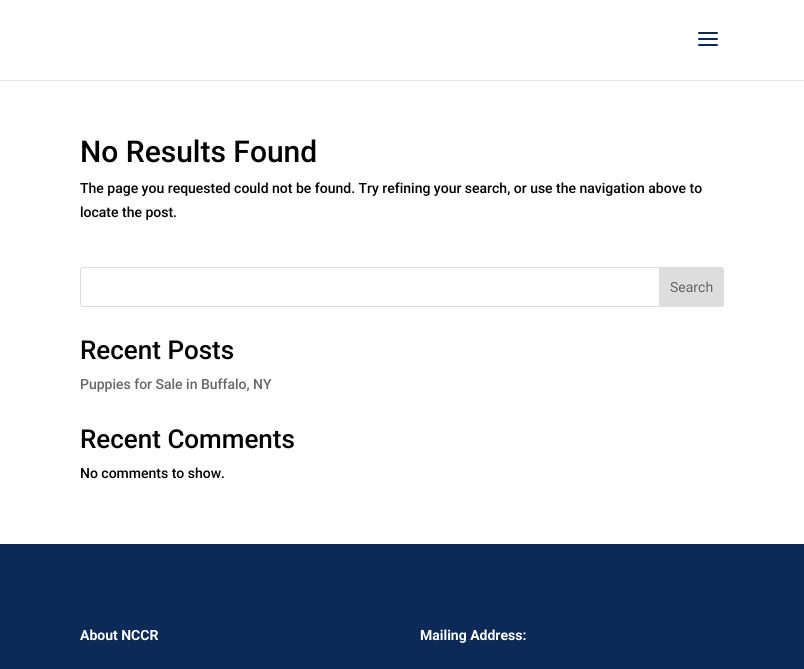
import math
import cairo

surface = cairo.ImageSurface(cairo.FORMAT_RGB24, 804, 669)
ctx = cairo.Context(surface)
options = cairo.FontOptions()
options.set_hint_metrics(cairo.HINT_METRICS_OFF)
options.set_hint_style(cairo.HINT_STYLE_NONE)
ctx.set_font_options(options)
ctx.set_miter_limit(4)


def set_color(code):
    ctx.set_source_rgb(*(v / 255 for v in bytes.fromhex(code[-6:])))


def draw_text(x, y, s, family, size, color, bold=False, italic=False):
    ctx.select_font_face(family, cairo.FONT_SLANT_ITALIC if italic else cairo.FONT_SLANT_NORMAL, cairo.FONT_WEIGHT_BOLD if bold else cairo.FONT_WEIGHT_NORMAL)
    ctx.set_font_size(size)
    set_color(color)
    ctx.move_to(x, y)
    ctx.show_text(s)


def fill_rect(x, y, w, h, color):
    set_color(color)
    ctx.rectangle(x, y, w, h)
    ctx.fill()


def rounded_rect(x, y, w, h, r):
    ctx.new_sub_path()
    for i, (u, v) in enumerate([(x + w - r, y + h - r), (x + r, y + h - r), (x + r, y + r), (x + w - r, y + r)]):
        ctx.arc(u, v, r, i * math.pi / 2, (i + 1) * math.pi / 2)
    ctx.close_path()


def draw_image(path, x, y, w, h):
    ctx.save()
    ctx.set_source_surface(cairo.ImageSurface.create_from_png(path), x, y)
    ctx.rectangle(x, y, w, h)
    ctx.fill()
    ctx.restore()


set_color("#ffffff")
ctx.paint()
fill_rect(0, 80, 804, 1, "#e6e6e6")
draw_image("assets/img1.png", 698, 32, 20, 14)
draw_text(80, 162, "No Results Found", "Roboto Medium", 30, "#000000")
draw_text(80, 193, "The page you requested could not be found. Try refining your search, or use the navigation above to", "Roboto Medium", 14, "#000000")
draw_text(80, 217, "locate the post.", "Roboto Medium", 14, "#000000")
rounded_rect(80.5, 267.5, 643, 39, 2.5)
set_color("#dddddd")
ctx.set_line_width(1)
ctx.stroke()
ctx.new_path()
ctx.move_to(659.5, 267.5)
ctx.line_to(721, 267.5)
ctx.curve_to(722.5, 267.5, 723.5, 268.5, 723.5, 270)
ctx.line_to(723.5, 304)
ctx.curve_to(723.5, 305.5, 722.5, 306.5, 721, 306.5)
ctx.line_to(659.5, 306.5)
ctx.close_path()
ctx.fill_preserve()
ctx.stroke()
draw_text(670, 292, "Search", "Roboto", 14, "#666666")
draw_text(80, 359, "Recent Posts", "Roboto Medium", 26, "#000000")
draw_text(80, 389, "Puppies for Sale in Buffalo, NY", "Roboto Medium", 14, "#666666")
draw_text(80, 448, "Recent Comments", "Roboto Medium", 26, "#000000")
draw_text(80, 478, "No comments to show.", "Roboto Medium", 14, "#000000")
fill_rect(0, 544, 804, 125, "#0c2a57")
draw_text(80, 640, "About NCCR", "Roboto", 14, "#ffffff", bold=True)
draw_text(420, 640, "Mailing Address:", "Roboto", 14, "#ffffff", bold=True)
surface.write_to_png("output.png")
